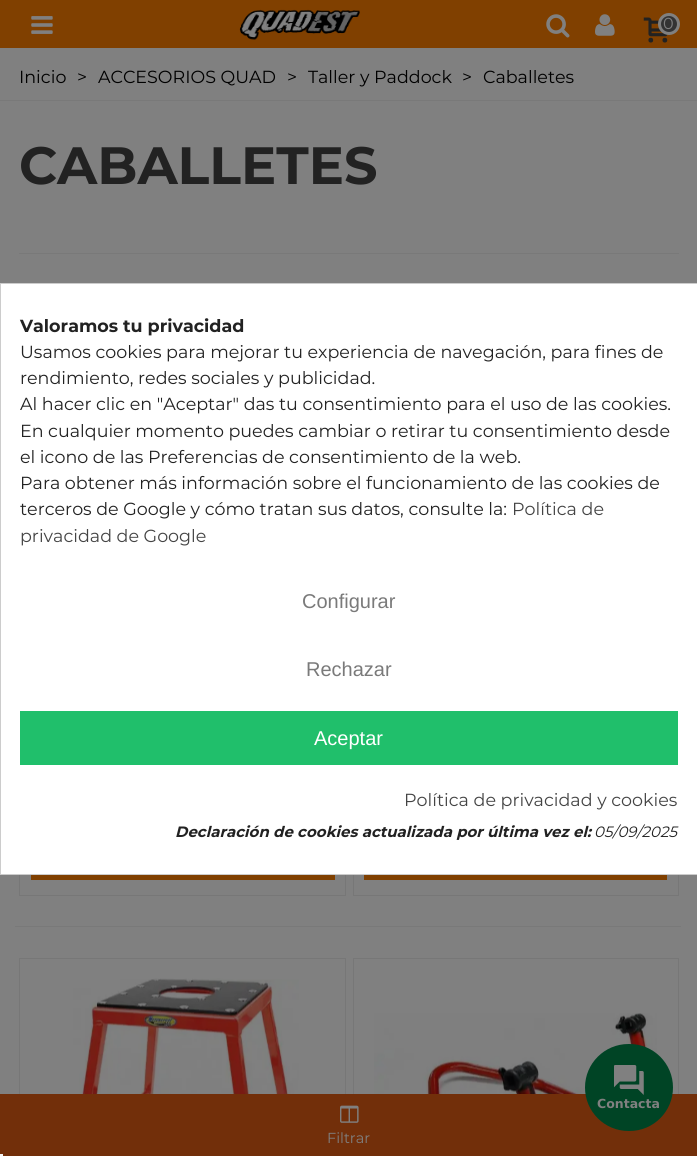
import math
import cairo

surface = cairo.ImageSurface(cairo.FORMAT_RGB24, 697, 1156)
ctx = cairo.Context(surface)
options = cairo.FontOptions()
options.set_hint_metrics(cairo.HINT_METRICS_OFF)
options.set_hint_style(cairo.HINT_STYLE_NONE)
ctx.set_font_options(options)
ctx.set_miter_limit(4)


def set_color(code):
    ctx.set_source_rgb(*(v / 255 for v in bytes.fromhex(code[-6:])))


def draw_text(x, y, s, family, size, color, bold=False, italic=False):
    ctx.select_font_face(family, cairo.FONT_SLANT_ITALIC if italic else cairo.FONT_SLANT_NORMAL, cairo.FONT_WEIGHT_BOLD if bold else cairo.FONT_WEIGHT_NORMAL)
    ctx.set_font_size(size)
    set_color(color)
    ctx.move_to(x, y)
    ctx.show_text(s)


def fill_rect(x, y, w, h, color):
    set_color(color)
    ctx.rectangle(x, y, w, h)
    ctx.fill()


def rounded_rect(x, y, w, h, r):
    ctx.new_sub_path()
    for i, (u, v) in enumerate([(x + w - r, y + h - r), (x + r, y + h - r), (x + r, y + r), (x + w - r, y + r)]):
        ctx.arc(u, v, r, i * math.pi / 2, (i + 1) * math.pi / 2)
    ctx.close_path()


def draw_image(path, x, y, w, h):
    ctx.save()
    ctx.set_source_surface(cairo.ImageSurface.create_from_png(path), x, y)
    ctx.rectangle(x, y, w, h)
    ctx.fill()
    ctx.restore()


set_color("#808080")
ctx.paint()
fill_rect(0, 0, 697, 48, "#804000")
draw_image("assets/img1.png", 31, 16, 22, 18)
draw_image("assets/img2.png", 239, 9, 121, 31)
draw_image("assets/img3.png", 546, 14, 24, 24)
draw_image("assets/img4.png", 595, 14, 20, 22)
draw_image("assets/img5.png", 643, 17, 25, 26)
set_color("#333333")
ctx.arc(669, 24, 9.5, 0, 2 * math.pi)
ctx.fill_preserve()
set_color("#808080")
ctx.set_line_width(3)
ctx.stroke()
draw_text(663, 29, "0", "Montserrat", 16, "#808080")
fill_rect(0, 100, 697, 1, "#797979")
draw_text(19, 83, "Inicio", "Montserrat", 17.5, "#000000")
draw_text(77, 83, ">", "Montserrat", 17.5, "#000000")
draw_text(98, 83, "ACCESORIOS QUAD", "Montserrat", 17.5, "#000000")
draw_text(287, 83, ">", "Montserrat", 17.5, "#000000")
draw_text(308, 83, "Taller y Paddock", "Montserrat", 17.5, "#000000")
draw_text(462, 83, ">", "Montserrat", 17.5, "#000000")
draw_text(483, 83, "Caballetes", "Montserrat", 17.5, "#000000")
draw_text(19, 184, "CABALLETES", "Montserrat", 52.5, "#222222", bold=True)
fill_rect(19, 253, 660, 1, "#797979")
ctx.rectangle(19.5, 315.5, 326, 580)
set_color("#777777")
ctx.set_line_width(1)
ctx.stroke()
fill_rect(31, 875, 304, 5, "#804000")
ctx.rectangle(353.5, 315.5, 325, 580)
set_color("#777777")
ctx.stroke()
fill_rect(364, 875, 303, 5, "#804000")
fill_rect(15, 926, 666, 1, "#797979")
ctx.rectangle(19.5, 958.5, 326, 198)
set_color("#777777")
ctx.stroke()
draw_image("assets/img6.png", 73, 978, 226, 116)
ctx.rectangle(353.5, 958.5, 325, 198)
ctx.stroke()
draw_image("assets/img7.png", 374, 1013, 283, 81)
fill_rect(0, 1094, 697, 62, "#722f0a")
draw_image("assets/img8.png", 340, 1105, 19, 18)
draw_text(327, 1143, "Filtrar", "Montserrat", 14.5, "#808080")
set_color("#ffffff")
ctx.rectangle(0.5, 283.5, 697, 591)
ctx.fill_preserve()
set_color("#cccccc")
ctx.stroke()
draw_text(20, 332, "Valoramos tu privacidad", "Montserrat", 17.5, "#222222", bold=True)
draw_text(20, 358, "Usamos cookies para mejorar tu experiencia de navegación, para fines de", "Montserrat", 17.5, "#222222")
draw_text(20, 384, "rendimiento, redes sociales y publicidad.", "Montserrat", 17.5, "#222222")
draw_text(20, 410, "Al hacer clic en \"Aceptar\" das tu consentimiento para el uso de las cookies.", "Montserrat", 17.5, "#222222")
draw_text(20, 437, "En cualquier momento puedes cambiar o retirar tu consentimiento desde", "Montserrat", 17.5, "#222222")
draw_text(20, 463, "el icono de las Preferencias de consentimiento de la web.", "Montserrat", 17.5, "#222222")
draw_text(20, 489, "Para obtener más información sobre el funcionamiento de las cookies de", "Montserrat", 17.5, "#222222")
draw_text(20, 515, "terceros de Google y cómo tratan sus datos, consulte la:", "Montserrat", 17.5, "#222222")
draw_text(512, 515, "Política de", "Montserrat", 17.5, "#444444")
draw_text(20, 542, "privacidad de Google", "Montserrat", 17.5, "#444444")
draw_text(302, 608, "Configurar", "Liberation Sans", 20, "#7a7a7a")
draw_text(306, 676, "Rechazar", "Liberation Sans", 20, "#7a7a7a")
fill_rect(20, 711, 658, 54, "#20bf6b")
draw_text(314, 745, "Aceptar", "Liberation Sans", 20, "#ffffff")
draw_text(404, 806, "Política de privacidad y cookies", "Montserrat", 17.5, "#444444")
draw_text(175, 837, "Declaración de cookies actualizada por última vez el:", "Montserrat", 15, "#222222", bold=True, italic=True)
draw_text(594, 837, "05/09/2025", "Montserrat", 15, "#222222", italic=True)
set_color("#004425")
rounded_rect(585, 1044, 88, 87, 43.5)
ctx.fill()
draw_image("assets/img9.png", 614, 1065, 30, 30)
draw_text(597, 1108, "Contacta", "DejaVu Sans", 12.5, "#808080", bold=True)
fill_rect(0, 1154, 3, 2, "#f5f5f5")
surface.write_to_png("output.png")
